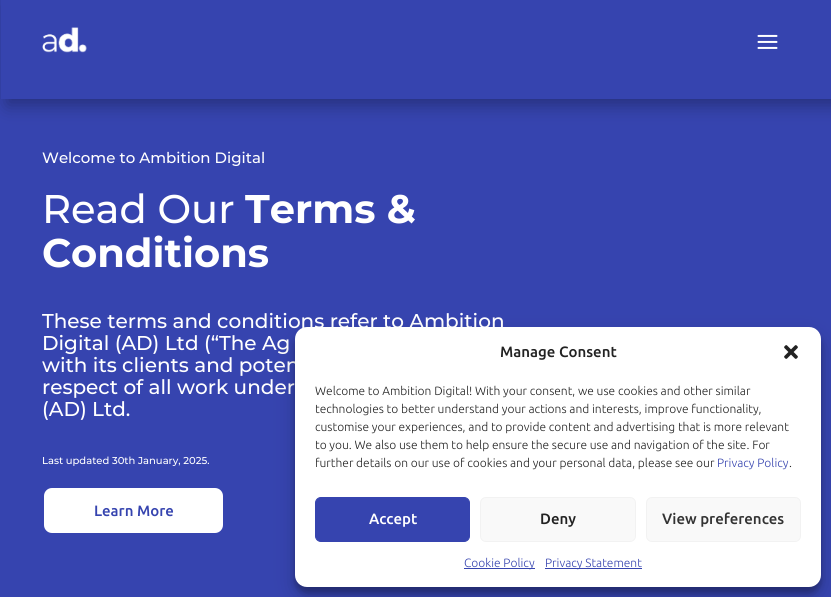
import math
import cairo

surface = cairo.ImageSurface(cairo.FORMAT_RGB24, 831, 597)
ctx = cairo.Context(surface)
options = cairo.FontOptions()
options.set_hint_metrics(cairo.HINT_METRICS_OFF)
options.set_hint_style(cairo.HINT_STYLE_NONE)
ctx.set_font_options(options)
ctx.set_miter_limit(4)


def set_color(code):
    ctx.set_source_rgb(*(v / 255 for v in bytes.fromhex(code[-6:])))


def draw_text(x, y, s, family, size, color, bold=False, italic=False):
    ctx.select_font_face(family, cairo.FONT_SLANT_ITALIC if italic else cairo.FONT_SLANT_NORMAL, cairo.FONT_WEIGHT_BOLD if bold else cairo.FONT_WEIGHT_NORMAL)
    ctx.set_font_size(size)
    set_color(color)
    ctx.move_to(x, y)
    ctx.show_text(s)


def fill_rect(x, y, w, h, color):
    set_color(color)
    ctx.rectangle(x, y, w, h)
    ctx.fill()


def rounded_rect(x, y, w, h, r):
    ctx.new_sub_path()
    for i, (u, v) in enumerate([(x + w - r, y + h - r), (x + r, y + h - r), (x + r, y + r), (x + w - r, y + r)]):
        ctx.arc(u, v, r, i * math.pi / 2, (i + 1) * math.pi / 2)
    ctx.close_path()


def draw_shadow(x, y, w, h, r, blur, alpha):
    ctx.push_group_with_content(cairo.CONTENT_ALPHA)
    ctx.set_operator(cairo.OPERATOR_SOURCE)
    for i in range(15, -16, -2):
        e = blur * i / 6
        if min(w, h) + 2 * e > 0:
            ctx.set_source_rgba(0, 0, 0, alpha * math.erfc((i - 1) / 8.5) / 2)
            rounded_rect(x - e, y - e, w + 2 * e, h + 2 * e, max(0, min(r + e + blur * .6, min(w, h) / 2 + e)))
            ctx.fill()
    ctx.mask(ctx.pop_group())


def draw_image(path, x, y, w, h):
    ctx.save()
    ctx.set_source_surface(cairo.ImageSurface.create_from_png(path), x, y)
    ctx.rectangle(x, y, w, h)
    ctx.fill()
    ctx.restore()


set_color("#3644af")
ctx.paint()
ctx.save()
ctx.set_fill_rule(cairo.FILL_RULE_EVEN_ODD)
ctx.new_path()
ctx.move_to(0, 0)
ctx.line_to(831, 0)
ctx.line_to(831, 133)
ctx.line_to(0, 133)
ctx.close_path()
ctx.move_to(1, -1)
ctx.line_to(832, -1)
ctx.line_to(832, 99)
ctx.line_to(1, 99)
ctx.close_path()
ctx.clip()
set_color("#000000")
draw_shadow(7, 5, 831, 100, 0, 9, 0.3)
ctx.restore()
draw_image("assets/img1.png", 42, 27, 45, 26)
draw_image("assets/img2.png", 757, 34, 21, 15)
draw_text(42, 163, "Welcome to Ambition Digital", "Montserrat Medium", 15, "#ffffff")
draw_text(42, 223, "Read Our", "Montserrat Medium", 40, "#ffffff")
draw_text(245, 223, "Terms &", "Montserrat", 40, "#ffffff", bold=True)
draw_text(42, 267, "Conditions", "Montserrat", 40, "#ffffff", bold=True)
draw_text(42, 328, "These terms and conditions refer to Ambition", "Montserrat Medium", 20, "#ffffff")
draw_text(42, 350, "Digital (AD) Ltd (“The Ag", "Montserrat Medium", 20, "#ffffff")
draw_text(42, 372, "with its clients and poten", "Montserrat Medium", 20, "#ffffff")
draw_text(42, 394, "respect of all work under", "Montserrat Medium", 20, "#ffffff")
draw_text(42, 416, "(AD) Ltd.", "Montserrat Medium", 20, "#ffffff")
draw_text(42, 464, "Last updated 30th January, 2025.", "Montserrat Medium", 10, "#ffffff")
rounded_rect(43, 487, 181, 47, 9)
ctx.fill_preserve()
set_color("#3644af")
ctx.stroke()
draw_text(94, 516, "Learn More", "Ubuntu Medium", 15, "#3644af")
set_color("#000000")
draw_shadow(295, 333, 526, 260, 12, 3, 0.23)
draw_shadow(295, 337, 526, 260, 12, 10, 0.19)
set_color("#ffffff")
rounded_rect(295, 327, 526, 260, 12)
ctx.fill()
draw_text(500, 357, "Manage Consent", "Ubuntu Medium", 15, "#222222")
draw_image("assets/img3.png", 784, 345, 14, 14)
draw_text(315, 395, "Welcome to Ambition Digital! With your consent, we use cookies and other similar", "Ubuntu Light", 12, "#222222")
draw_text(315, 413, "technologies to better understand your actions and interests, improve functionality,", "Ubuntu Light", 12, "#222222")
draw_text(315, 431, "customise your experiences, and to provide content and advertising that is more relevant", "Ubuntu Light", 12, "#222222")
draw_text(315, 449, "to you. We also use them to help ensure the secure use and navigation of the site. For", "Ubuntu Light", 12, "#222222")
draw_text(315, 467, "further details on our use of cookies and your personal data, please see our", "Ubuntu Light", 12, "#222222")
draw_text(717, 467, "Privacy Policy", "Ubuntu Light", 12, "#3644af")
draw_text(789, 467, ".", "Ubuntu Light", 12, "#222222")
set_color("#3644af")
rounded_rect(315.5, 497.5, 154, 44, 5.5)
ctx.fill_preserve()
ctx.set_line_width(1)
ctx.stroke()
draw_text(369, 524, "Accept", "Ubuntu Medium", 15, "#ffffff")
set_color("#f9f9f9")
rounded_rect(480.5, 497.5, 155, 44, 5.5)
ctx.fill_preserve()
set_color("#f2f2f2")
ctx.stroke()
draw_text(540, 524, "Deny", "Ubuntu Medium", 15, "#222222")
set_color("#f9f9f9")
rounded_rect(646.5, 497.5, 154, 44, 5.5)
ctx.fill_preserve()
set_color("#f2f2f2")
ctx.stroke()
draw_text(662, 524, "View preferences", "Ubuntu Medium", 15, "#333333")
fill_rect(464, 568, 71, 1, "#3644af")
draw_text(464, 567, "Cookie Policy", "Ubuntu Light", 12, "#3644af")
fill_rect(545, 568, 97, 1, "#3644af")
draw_text(545, 567, "Privacy Statement", "Ubuntu Light", 12, "#3644af")
surface.write_to_png("output.png")
